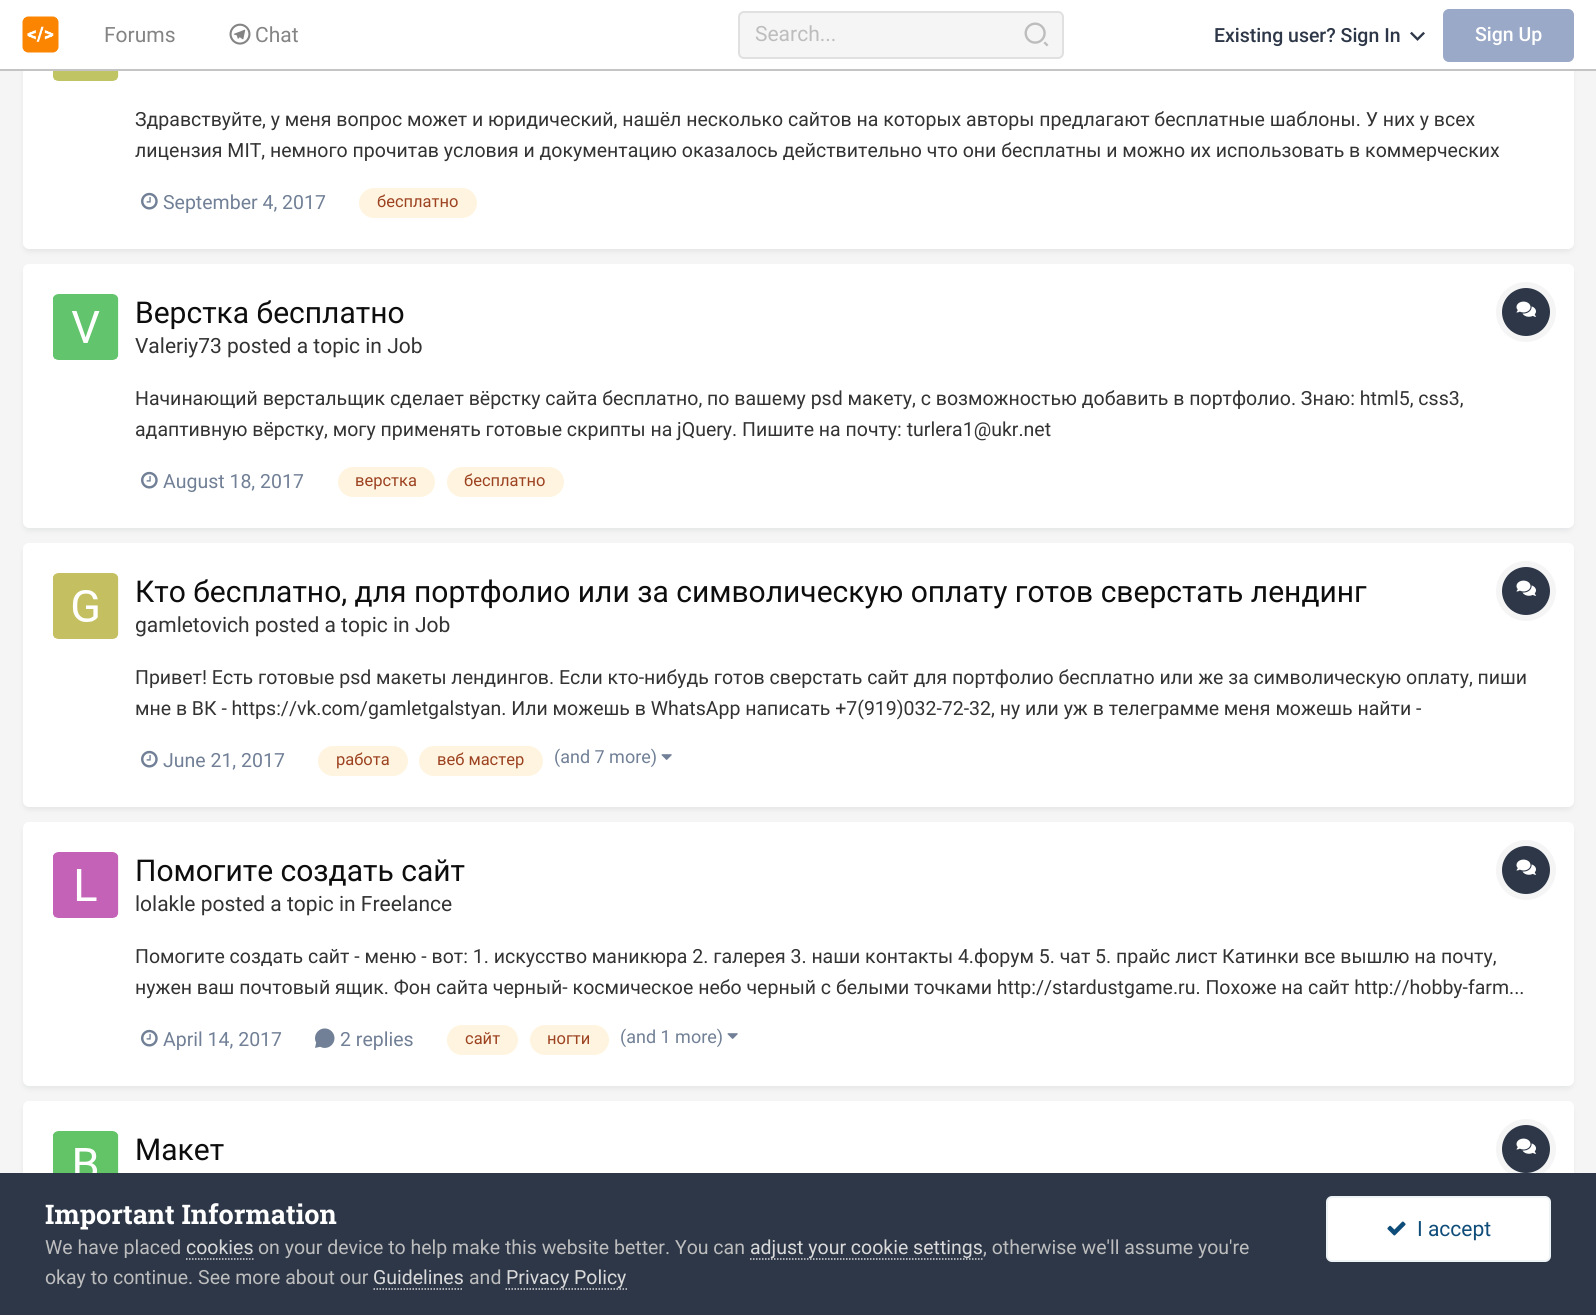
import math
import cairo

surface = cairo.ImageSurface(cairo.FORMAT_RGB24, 1596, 1315)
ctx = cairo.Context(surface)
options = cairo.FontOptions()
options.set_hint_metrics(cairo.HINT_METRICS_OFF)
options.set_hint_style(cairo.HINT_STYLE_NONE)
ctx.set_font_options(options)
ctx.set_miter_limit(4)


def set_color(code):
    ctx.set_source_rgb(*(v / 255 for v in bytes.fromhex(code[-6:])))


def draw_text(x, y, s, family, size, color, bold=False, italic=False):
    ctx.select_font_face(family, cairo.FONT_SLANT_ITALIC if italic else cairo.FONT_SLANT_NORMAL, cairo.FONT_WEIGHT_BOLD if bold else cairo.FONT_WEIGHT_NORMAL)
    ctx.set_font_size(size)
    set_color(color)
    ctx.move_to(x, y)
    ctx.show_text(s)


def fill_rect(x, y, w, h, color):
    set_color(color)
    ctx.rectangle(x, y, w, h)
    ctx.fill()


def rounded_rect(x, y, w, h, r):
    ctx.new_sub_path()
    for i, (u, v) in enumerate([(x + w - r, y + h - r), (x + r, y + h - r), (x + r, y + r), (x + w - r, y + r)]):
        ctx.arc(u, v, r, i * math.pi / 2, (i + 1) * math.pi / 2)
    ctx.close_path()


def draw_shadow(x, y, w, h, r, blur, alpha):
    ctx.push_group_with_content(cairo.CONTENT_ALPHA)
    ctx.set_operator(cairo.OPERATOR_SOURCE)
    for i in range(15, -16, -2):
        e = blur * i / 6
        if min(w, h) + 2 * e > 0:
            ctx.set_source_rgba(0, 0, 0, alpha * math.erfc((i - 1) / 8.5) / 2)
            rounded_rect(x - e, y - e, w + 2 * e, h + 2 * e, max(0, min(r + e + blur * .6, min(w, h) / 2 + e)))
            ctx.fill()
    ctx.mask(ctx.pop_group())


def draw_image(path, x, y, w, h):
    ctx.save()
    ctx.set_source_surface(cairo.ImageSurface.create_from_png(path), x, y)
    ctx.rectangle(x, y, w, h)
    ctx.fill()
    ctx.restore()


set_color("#f5f5f5")
ctx.paint()
set_color("#2d3748")
draw_shadow(24, -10, 1548, 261, 5, 3, 0.1)
set_color("#ffffff")
rounded_rect(23, -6, 1551, 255, 6)
ctx.fill()
fill_rect(0, 69, 1596, 2, "#c4c4c4")
fill_rect(0, 0, 1596, 69, "#ffffff")
draw_image("assets/img1.png", 22, 16, 37, 37)
draw_text(104, 42, "Forums", "Roboto", 21, "#848484")
draw_image("assets/img2.png", 229, 23, 22, 22)
draw_text(255, 42, "Chat", "Roboto", 21, "#848484")
set_color("#f5f5f5")
rounded_rect(739, 12, 324, 46, 5)
ctx.fill_preserve()
set_color("#e0e0e0")
ctx.stroke()
draw_text(755, 41, "Search...", "Roboto", 21, "#bdbdbd")
draw_image("assets/img3.png", 1024, 22, 25, 25)
draw_text(1214, 42, "Existing user? Sign In", "Roboto Medium", 19.5, "#2d3748")
draw_image("assets/img4.png", 1410, 31, 15, 10)
set_color("#9aa9c7")
rounded_rect(1443, 9, 131, 53, 6)
ctx.fill()
draw_text(1475, 41, "Sign Up", "Roboto Medium", 19.5, "#ffffff")
draw_image("assets/img5.png", 53, 71, 66, 10)
draw_text(135, 126, "Здравствуйте, у меня вопрос может и юридический, нашёл несколько сайтов на которых авторы предлагают бесплатные шаблоны. У них у всех", "Roboto", 19.5, "#333333")
draw_text(135, 157, "лицензия MIT, немного прочитав условия и документацию оказалось действительно что они бесплатны и можно их использовать в коммерческих", "Roboto", 19.5, "#333333")
draw_image("assets/img6.png", 141, 192, 17, 18)
draw_text(163, 209, "September 4, 2017", "Roboto", 19.5, "#718096")
set_color("#fff4df")
rounded_rect(359, 188, 118, 30, 15)
ctx.fill()
draw_text(377, 207, "бесплатно", "Roboto", 16.5, "#9c4221")
set_color("#2d3748")
draw_shadow(24, 269, 1548, 261, 5, 3, 0.1)
set_color("#ffffff")
rounded_rect(23, 264, 1551, 264, 6)
ctx.fill()
draw_image("assets/img7.png", 53, 294, 66, 66)
draw_text(135, 323, "Верстка бесплатно", "Roboto", 30, "#0d0d0d")
draw_text(135, 353, "Valeriy73 posted a topic in Job", "Roboto", 21, "#333333")
ctx.new_path()
ctx.arc(1526, 312, 27, 0, 2 * math.pi)
set_color("#f5f5f5")
ctx.set_line_width(6)
ctx.stroke()
set_color("#2d3748")
ctx.arc(1526, 312, 24, 0, 2 * math.pi)
ctx.fill()
draw_image("assets/img8.png", 1516, 301, 21, 16)
draw_text(135, 405, "Начинающий верстальщик сделает вёрстку сайта бесплатно, по вашему psd макету, с возможностью добавить в портфолио. Знаю: html5, css3,", "Roboto", 19.5, "#333333")
draw_text(135, 436, "адаптивную вёрстку, могу применять готовые скрипты на jQuery. Пишите на почту: turlera1@ukr.net", "Roboto", 19.5, "#333333")
draw_image("assets/img6.png", 141, 471, 17, 18)
draw_text(163, 488, "August 18, 2017", "Roboto", 19.5, "#718096")
set_color("#fff4df")
rounded_rect(338, 467, 97, 30, 15)
ctx.fill()
draw_text(355, 486, "верстка", "Roboto", 16.5, "#9c4221")
set_color("#fff4df")
rounded_rect(447, 467, 117, 30, 15)
ctx.fill()
draw_text(464, 486, "бесплатно", "Roboto", 16.5, "#9c4221")
set_color("#2d3748")
draw_shadow(24, 548, 1548, 261, 5, 3, 0.1)
set_color("#ffffff")
rounded_rect(23, 543, 1551, 264, 6)
ctx.fill()
draw_image("assets/img9.png", 53, 573, 66, 66)
draw_text(135, 602, "Кто бесплатно, для портфолио или за символическую оплату готов сверстать лендинг", "Roboto", 30, "#0d0d0d")
draw_text(135, 632, "gamletovich posted a topic in Job", "Roboto", 21, "#333333")
ctx.new_path()
ctx.arc(1526, 591, 27, 0, 2 * math.pi)
set_color("#f5f5f5")
ctx.stroke()
set_color("#2d3748")
ctx.arc(1526, 591, 24, 0, 2 * math.pi)
ctx.fill()
draw_image("assets/img8.png", 1516, 580, 21, 16)
draw_text(135, 684, "Привет! Есть готовые psd макеты лендингов. Если кто-нибудь готов сверстать сайт для портфолио бесплатно или же за символическую оплату, пиши", "Roboto", 19.5, "#333333")
draw_text(135, 715, "мне в ВК - https://vk.com/gamletgalstyan. Или можешь в WhatsApp написать +7(919)032-72-32, ну или уж в телеграмме меня можешь найти -", "Roboto", 19.5, "#333333")
draw_image("assets/img6.png", 141, 750, 17, 18)
draw_text(163, 767, "June 21, 2017", "Roboto", 19.5, "#718096")
set_color("#fff4df")
rounded_rect(318, 746, 90, 30, 15)
ctx.fill()
draw_text(336, 765, "работа", "Roboto", 16.5, "#9c4221")
set_color("#fff4df")
rounded_rect(419, 746, 124, 30, 15)
ctx.fill()
draw_text(437, 765, "веб мастер", "Roboto", 16.5, "#9c4221")
draw_text(554, 763, "(and 7 more)", "Roboto", 18, "#718096")
draw_image("assets/img10.png", 661, 754, 11, 6)
set_color("#2d3748")
draw_shadow(24, 827, 1548, 261, 5, 3, 0.1)
set_color("#ffffff")
rounded_rect(23, 822, 1551, 264, 6)
ctx.fill()
draw_image("assets/img11.png", 53, 852, 66, 66)
draw_text(135, 881, "Помогите создать сайт", "Roboto", 30, "#0d0d0d")
draw_text(135, 911, "lolakle posted a topic in Freelance", "Roboto", 21, "#333333")
ctx.new_path()
ctx.arc(1526, 870, 27, 0, 2 * math.pi)
set_color("#f5f5f5")
ctx.stroke()
set_color("#2d3748")
ctx.arc(1526, 870, 24, 0, 2 * math.pi)
ctx.fill()
draw_image("assets/img8.png", 1516, 859, 21, 16)
draw_text(135, 963, "Помогите создать сайт - меню - вот: 1. искусство маникюра 2. галерея 3. наши контакты 4.форум 5. чат 5. прайс лист Катинки все вышлю на почту,", "Roboto", 19.5, "#333333")
draw_text(135, 994, "нужен ваш почтовый ящик. Фон сайта черный- космическое небо черный с белыми точками http://stardustgame.ru. Похоже на сайт http://hobby-farm...", "Roboto", 19.5, "#333333")
draw_image("assets/img6.png", 141, 1029, 17, 18)
draw_text(163, 1046, "April 14, 2017", "Roboto", 19.5, "#718096")
draw_image("assets/img12.png", 315, 1028, 20, 20)
draw_text(340, 1046, "2 replies", "Roboto", 19.5, "#718096")
set_color("#fff4df")
rounded_rect(447, 1025, 71, 30, 15)
ctx.fill()
draw_text(465, 1044, "сайт", "Roboto", 16.5, "#9c4221")
set_color("#fff4df")
rounded_rect(530, 1025, 79, 30, 15)
ctx.fill()
draw_text(547, 1044, "ногти", "Roboto", 16.5, "#9c4221")
draw_text(620, 1043, "(and 1 more)", "Roboto", 18, "#718096")
draw_image("assets/img10.png", 727, 1033, 11, 6)
set_color("#2d3748")
draw_shadow(24, 1106, 1548, 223, 5, 3, 0.1)
set_color("#ffffff")
rounded_rect(23, 1101, 1551, 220, 6)
ctx.fill()
draw_image("assets/img13.png", 53, 1131, 66, 42)
draw_text(135, 1160, "Макет", "Roboto", 30, "#0d0d0d")
ctx.new_path()
ctx.arc(1526, 1149, 27, 0, 2 * math.pi)
set_color("#f5f5f5")
ctx.stroke()
set_color("#2d3748")
ctx.arc(1526, 1149, 24, 0, 2 * math.pi)
ctx.fill()
draw_image("assets/img8.png", 1516, 1138, 21, 16)
fill_rect(0, 1173, 1596, 142, "#2d3748")
draw_text(45, 1224, "Important Information", "Roboto Slab", 27, "#ffffff", bold=True)
draw_text(45, 1254, "We have placed", "Roboto", 19.5, "#bdbdbd")
draw_text(186, 1254, "cookies", "Roboto", 19.5, "#dadada")
ctx.new_path()
ctx.move_to(186, 1259)
ctx.line_to(253.5, 1259)
ctx.set_line_width(1.5)
ctx.set_dash([1.5, 1.5])
ctx.stroke()
draw_text(258, 1254, "on your device to help make this website better. You can", "Roboto", 19.5, "#bdbdbd")
ctx.new_path()
ctx.move_to(750, 1259)
ctx.line_to(982.5, 1259)
set_color("#dadada")
ctx.stroke()
draw_text(750, 1254, "adjust your cookie settings", "Roboto", 19.5, "#dadada")
draw_text(983, 1254, ", otherwise we'll assume you're", "Roboto", 19.5, "#bdbdbd")
draw_text(45, 1284, "okay to continue. See more about our", "Roboto", 19.5, "#bdbdbd")
draw_text(373, 1284, "Guidelines", "Roboto", 19.5, "#dadada")
ctx.new_path()
ctx.move_to(373.5, 1289)
ctx.line_to(463.5, 1289)
ctx.stroke()
draw_text(469, 1284, "and", "Roboto", 19.5, "#bdbdbd")
ctx.new_path()
ctx.move_to(505.5, 1289)
ctx.line_to(627, 1289)
set_color("#dadada")
ctx.stroke()
draw_text(506, 1284, "Privacy Policy", "Roboto", 19.5, "#dadada")
set_color("#ffffff")
rounded_rect(1326, 1196, 225, 66, 6)
ctx.fill()
rounded_rect(1327, 1197, 223, 64, 5)
ctx.set_source_rgba(0.055, 0.298, 0.475, 0.07)
ctx.set_line_width(2)
ctx.set_dash([])
ctx.stroke()
draw_image("assets/img14.png", 1387, 1221, 19, 15)
draw_text(1417, 1236, "I accept", "Roboto", 21, "#0e4c79")
surface.write_to_png("output.png")
